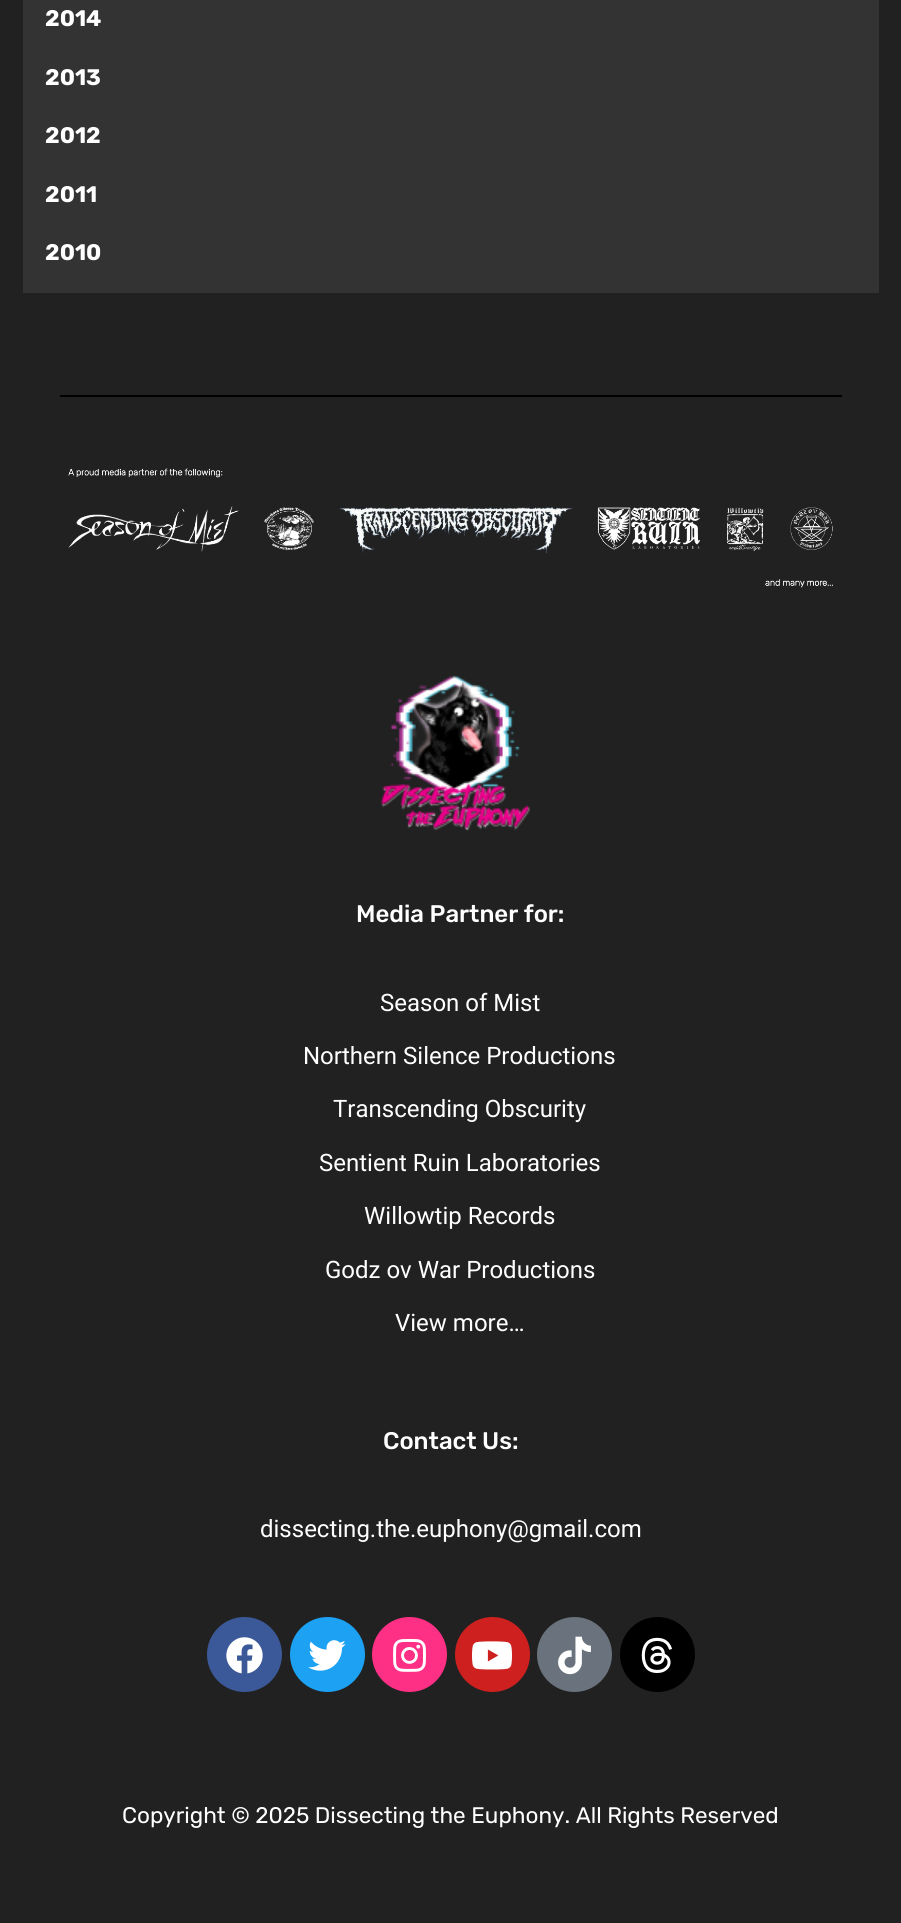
import math
import cairo

surface = cairo.ImageSurface(cairo.FORMAT_RGB24, 901, 1923)
ctx = cairo.Context(surface)
options = cairo.FontOptions()
options.set_hint_metrics(cairo.HINT_METRICS_OFF)
options.set_hint_style(cairo.HINT_STYLE_NONE)
ctx.set_font_options(options)
ctx.set_miter_limit(4)


def set_color(code):
    ctx.set_source_rgb(*(v / 255 for v in bytes.fromhex(code[-6:])))


def draw_text(x, y, s, family, size, color, bold=False, italic=False):
    ctx.select_font_face(family, cairo.FONT_SLANT_ITALIC if italic else cairo.FONT_SLANT_NORMAL, cairo.FONT_WEIGHT_BOLD if bold else cairo.FONT_WEIGHT_NORMAL)
    ctx.set_font_size(size)
    set_color(color)
    ctx.move_to(x, y)
    ctx.show_text(s)


def fill_rect(x, y, w, h, color):
    set_color(color)
    ctx.rectangle(x, y, w, h)
    ctx.fill()


def draw_image(path, x, y, w, h):
    ctx.save()
    ctx.set_source_surface(cairo.ImageSurface.create_from_png(path), x, y)
    ctx.rectangle(x, y, w, h)
    ctx.fill()
    ctx.restore()


set_color("#212121")
ctx.paint()
fill_rect(23, 0, 856, 293, "#333333")
draw_text(45, 26, "2014", "Rubik", 22.5, "#ffffff", bold=True)
draw_text(45, 85, "2013", "Rubik", 22.5, "#ffffff", bold=True)
draw_text(45, 143, "2012", "Rubik", 22.5, "#ffffff", bold=True)
draw_text(45, 202, "2011", "Rubik", 22.5, "#ffffff", bold=True)
draw_text(45, 260, "2010", "Rubik", 22.5, "#ffffff", bold=True)
fill_rect(60, 395, 782, 2, "#000000")
draw_image("assets/img1.png", 68, 468, 765, 120)
draw_image("assets/img2.png", 380, 675, 150, 156)
draw_text(356, 922, "Media Partner for:", "Rubik Medium", 24, "#ffffff")
draw_text(380, 1011, "Season of Mist", "Roboto", 24, "#ffffff")
draw_text(303, 1064, "Northern Silence Productions", "Roboto", 24, "#ffffff")
draw_text(333, 1117, "Transcending Obscurity", "Roboto", 24, "#ffffff")
draw_text(319, 1171, "Sentient Ruin Laboratories", "Roboto", 24, "#ffffff")
draw_text(364, 1224, "Willowtip Records", "Roboto", 24, "#ffffff")
draw_text(325, 1278, "Godz ov War Productions", "Roboto", 24, "#ffffff")
draw_text(395, 1331, "View more…", "Roboto", 24, "#ffffff")
draw_text(383, 1449, "Contact Us:", "Rubik Medium", 24, "#ffffff")
draw_text(260, 1537, "dissecting.the.euphony@gmail.com", "Roboto", 24, "#ffffff")
set_color("#3b5998")
ctx.new_path()
ctx.arc(244.5, 1654.5, 37.5, 0, 2 * math.pi)
ctx.fill()
draw_image("assets/img3.png", 226, 1637, 37, 37)
set_color("#1da1f2")
ctx.arc(327.5, 1654.5, 37.5, 0, 2 * math.pi)
ctx.fill()
draw_image("assets/img4.png", 308, 1640, 38, 31)
set_color("#fe3086")
ctx.arc(409.5, 1654.5, 37.5, 0, 2 * math.pi)
ctx.fill()
draw_image("assets/img5.png", 393, 1638, 33, 34)
set_color("#cd201f")
ctx.arc(492.5, 1654.5, 37.5, 0, 2 * math.pi)
ctx.fill()
draw_image("assets/img6.png", 472, 1641, 40, 29)
set_color("#69727d")
ctx.arc(574.5, 1654.5, 37.5, 0, 2 * math.pi)
ctx.fill()
draw_image("assets/img7.png", 558, 1636, 33, 39)
set_color("#000000")
ctx.arc(657.5, 1654.5, 37.5, 0, 2 * math.pi)
ctx.fill()
draw_image("assets/img8.png", 641, 1637, 31, 36)
draw_text(122, 1823, "Copyright © 2025 Dissecting the Euphony. All Rights Reserved", "Rubik", 22.5, "#ffffff")
surface.write_to_png("output.png")
